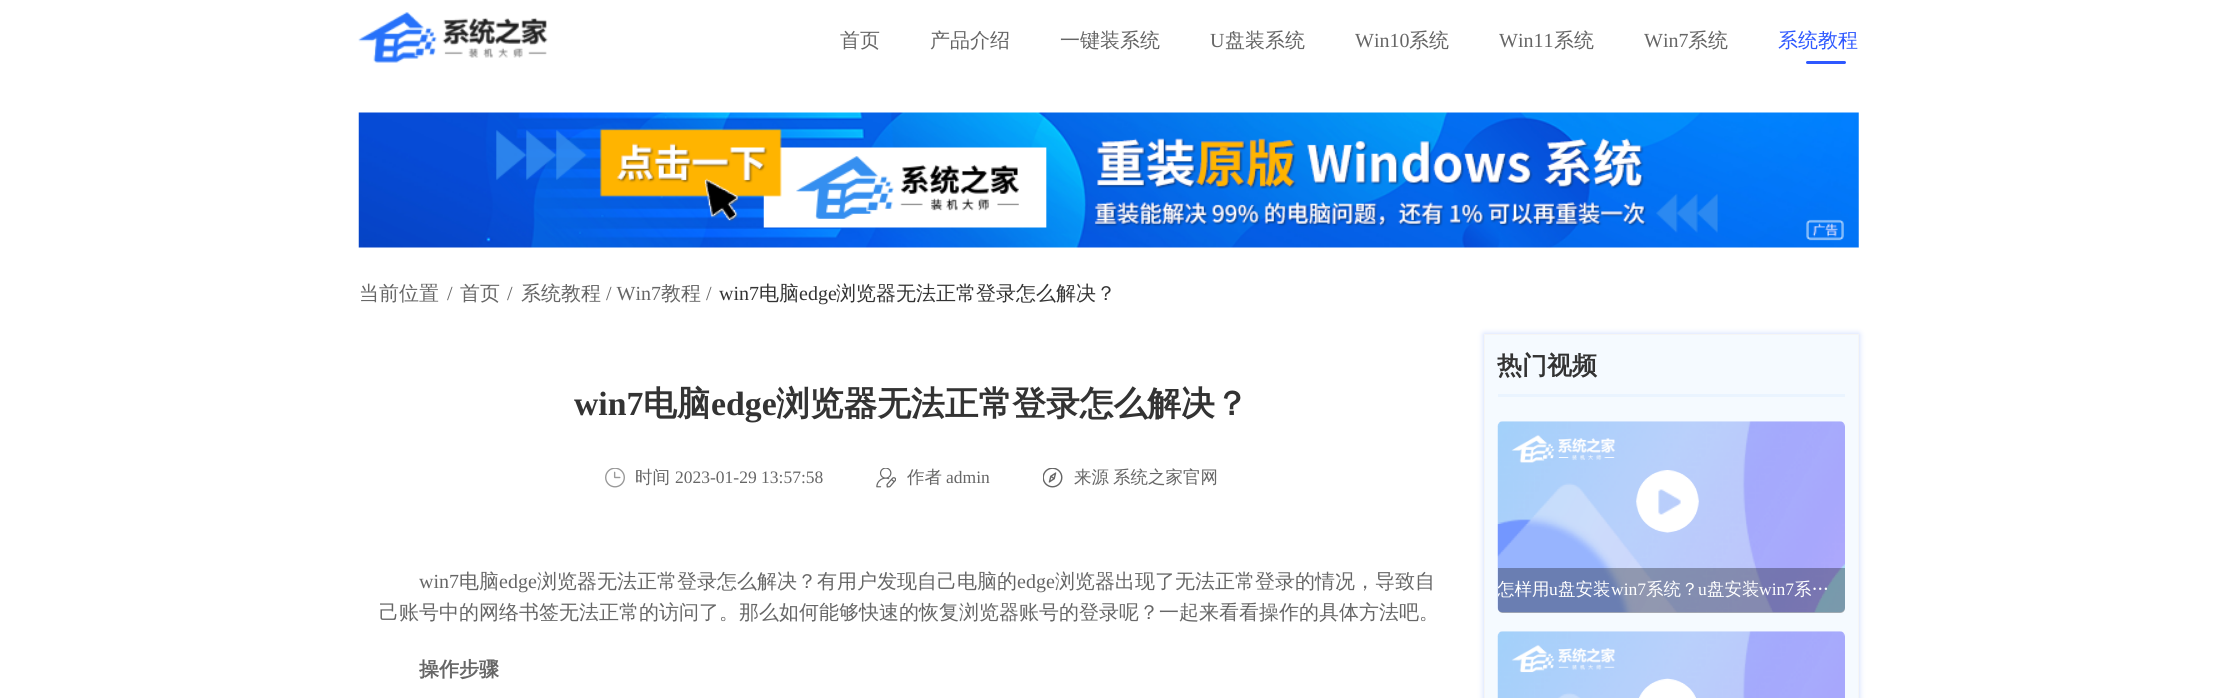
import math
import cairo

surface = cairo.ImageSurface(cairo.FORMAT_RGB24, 2216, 698)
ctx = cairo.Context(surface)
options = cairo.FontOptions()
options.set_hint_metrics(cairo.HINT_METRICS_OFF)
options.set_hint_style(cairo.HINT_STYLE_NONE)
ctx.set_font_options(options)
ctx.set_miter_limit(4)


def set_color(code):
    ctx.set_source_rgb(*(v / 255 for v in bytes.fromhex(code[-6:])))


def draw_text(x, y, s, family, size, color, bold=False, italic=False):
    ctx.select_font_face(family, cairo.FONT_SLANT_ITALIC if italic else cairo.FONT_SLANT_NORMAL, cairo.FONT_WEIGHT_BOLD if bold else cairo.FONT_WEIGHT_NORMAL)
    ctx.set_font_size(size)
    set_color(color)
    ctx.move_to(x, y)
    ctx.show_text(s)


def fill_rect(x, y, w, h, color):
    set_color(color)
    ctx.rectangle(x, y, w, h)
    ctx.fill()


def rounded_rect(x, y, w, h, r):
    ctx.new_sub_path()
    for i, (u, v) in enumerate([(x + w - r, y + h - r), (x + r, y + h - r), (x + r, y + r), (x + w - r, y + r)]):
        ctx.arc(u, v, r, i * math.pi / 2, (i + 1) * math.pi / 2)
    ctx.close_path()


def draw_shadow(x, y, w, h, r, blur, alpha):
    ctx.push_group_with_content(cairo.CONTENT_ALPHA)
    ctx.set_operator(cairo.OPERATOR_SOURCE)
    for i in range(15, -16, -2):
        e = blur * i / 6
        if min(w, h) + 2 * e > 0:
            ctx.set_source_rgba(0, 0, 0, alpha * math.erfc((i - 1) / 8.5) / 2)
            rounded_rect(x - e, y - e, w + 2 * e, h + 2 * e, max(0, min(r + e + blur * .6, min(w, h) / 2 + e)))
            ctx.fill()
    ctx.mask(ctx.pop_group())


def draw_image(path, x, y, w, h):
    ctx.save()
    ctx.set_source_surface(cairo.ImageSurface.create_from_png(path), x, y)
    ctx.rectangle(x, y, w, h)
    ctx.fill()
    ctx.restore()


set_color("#ffffff")
ctx.paint()
draw_image("assets/img1.png", 358, 12, 190, 51)
draw_text(840, 47, "首页", "WenQuanYi Zen Hei Medium", 20, "#666666")
draw_text(930, 47, "产品介绍", "WenQuanYi Zen Hei Medium", 20, "#666666")
draw_text(1060, 47, "一键装系统", "WenQuanYi Zen Hei Medium", 20, "#666666")
draw_text(1210, 47, "U", "Liberation Serif", 20, "#666666")
draw_text(1225, 47, "盘装系统", "WenQuanYi Zen Hei Medium", 20, "#666666")
draw_text(1355, 47, "Win10", "Liberation Serif", 20, "#666666")
draw_text(1409, 47, "系统", "WenQuanYi Zen Hei Medium", 20, "#666666")
draw_text(1499, 47, "Win11", "Liberation Serif", 20, "#666666")
draw_text(1554, 47, "系统", "WenQuanYi Zen Hei Medium", 20, "#666666")
draw_text(1644, 47, "Win7", "Liberation Serif", 20, "#666666")
draw_text(1688, 47, "系统", "WenQuanYi Zen Hei Medium", 20, "#666666")
draw_text(1778, 47, "系统教程", "WenQuanYi Zen Hei Medium", 20, "#2e58ff")
rounded_rect(1806, 61, 40, 3, 1.5)
ctx.fill()
draw_image("assets/img2.png", 358, 112, 1501, 136)
draw_text(359, 300, "当前位置", "WenQuanYi Zen Hei Medium", 20, "#666666")
draw_text(447, 300, "/", "Liberation Serif", 20, "#666666")
draw_text(460, 300, "首页", "WenQuanYi Zen Hei Medium", 20, "#666666")
draw_text(507, 300, "/", "Liberation Serif", 20, "#666666")
draw_text(521, 300, "系统教程", "WenQuanYi Zen Hei Medium", 20, "#666666")
draw_text(606, 300, "/ Win7", "Liberation Serif", 20, "#666666")
draw_text(661, 300, "教程", "WenQuanYi Zen Hei Medium", 20, "#666666")
draw_text(706, 300, "/", "Liberation Serif", 20, "#666666")
draw_text(719, 300, "win7", "Liberation Serif", 20, "#333333")
draw_text(759, 300, "电脑", "WenQuanYi Zen Hei Medium", 20, "#333333")
draw_text(799, 300, "edge", "Liberation Serif", 20, "#333333")
draw_text(836, 300, "浏览器无法正常登录怎么解决？", "WenQuanYi Zen Hei Medium", 20, "#333333")
draw_text(574, 415, "win7", "Liberation Serif", 33.75, "#333333", bold=True)
draw_text(643, 415, "电脑", "WenQuanYi Zen Hei", 33.75, "#333333", bold=True)
draw_text(711, 415, "edge", "Liberation Serif", 33.75, "#333333", bold=True)
draw_text(776, 415, "浏览器无法正常登录怎么解决？", "WenQuanYi Zen Hei", 33.75, "#333333", bold=True)
draw_image("assets/img3.png", 605, 468, 20, 20)
draw_text(635, 483, "时间", "WenQuanYi Zen Hei Medium", 17.5, "#666666")
draw_text(675, 483, "2023-01-29 13:57:58", "Liberation Serif", 17.5, "#666666")
draw_image("assets/img4.png", 876, 468, 20, 20)
draw_text(907, 483, "作者", "WenQuanYi Zen Hei Medium", 17.5, "#666666")
draw_text(946, 483, "admin", "Liberation Serif", 17.5, "#666666")
draw_image("assets/img5.png", 1043, 468, 20, 20)
draw_text(1074, 483, "来源", "WenQuanYi Zen Hei Medium", 17.5, "#666666")
draw_text(1113, 483, "系统之家官网", "WenQuanYi Zen Hei Medium", 17.5, "#666666")
draw_text(419, 588, "win7", "Liberation Serif", 20, "#666666")
draw_text(459, 588, "电脑", "WenQuanYi Zen Hei Medium", 20, "#666666")
draw_text(499, 588, "edge", "Liberation Serif", 20, "#666666")
draw_text(537, 588, "浏览器无法正常登录怎么解决？有用户发现自己电脑的", "WenQuanYi Zen Hei Medium", 20, "#666666")
draw_text(1017, 588, "edge", "Liberation Serif", 20, "#666666")
draw_text(1055, 588, "浏览器出现了无法正常登录的情况，导致自", "WenQuanYi Zen Hei Medium", 20, "#666666")
draw_text(379, 619, "己账号中的网络书签无法正常的访问了。那么如何能够快速的恢复浏览器账号的登录呢？一起来看看操作的具体方法吧。", "WenQuanYi Zen Hei Medium", 20, "#666666")
draw_text(419, 676, "操作步骤", "WenQuanYi Zen Hei", 20, "#666666", bold=True)
set_color("#c9d8ff")
draw_shadow(1484, 334, 375, 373, 0, 3, 1)
set_color("#f5faff")
ctx.rectangle(1484.5, 334.5, 374, 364)
ctx.fill_preserve()
set_color("#f5f5f5")
ctx.set_line_width(1)
ctx.stroke()
fill_rect(1498, 394, 347, 3, "#eaf4ff")
draw_text(1497, 374, "热门视频", "WenQuanYi Zen Hei", 25, "#333333", bold=True)
draw_image("assets/img6.png", 1497, 421, 348, 192)
draw_image("assets/img7.png", 1636, 470, 63, 63)
ctx.set_source_rgba(0, 0, 0, 0.3)
ctx.new_path()
ctx.move_to(1498, 568)
ctx.line_to(1845, 568)
ctx.line_to(1845, 608)
ctx.curve_to(1845, 611, 1843, 613, 1840, 613)
ctx.line_to(1503, 613)
ctx.curve_to(1500, 613, 1498, 611, 1498, 608)
ctx.close_path()
ctx.fill()
ctx.save()
ctx.rectangle(1498, 568, 347, 45)
ctx.clip()
draw_text(1497, 595, "怎样用", "WenQuanYi Zen Hei Medium", 17.5, "#ffffff")
ctx.restore()
draw_text(1549, 595, "u", "Liberation Serif", 17.5, "#ffffff")
draw_text(1558, 595, "盘安装", "WenQuanYi Zen Hei Medium", 17.5, "#ffffff")
draw_text(1611, 595, "win7", "Liberation Serif", 17.5, "#ffffff")
draw_text(1646, 595, "系统？", "WenQuanYi Zen Hei Medium", 17.5, "#ffffff")
draw_text(1698, 595, "u", "Liberation Serif", 17.5, "#ffffff")
draw_text(1707, 595, "盘安装", "WenQuanYi Zen Hei Medium", 17.5, "#ffffff")
draw_text(1759, 595, "win7", "Liberation Serif", 17.5, "#ffffff")
draw_text(1794, 595, "系…", "WenQuanYi Zen Hei Medium", 17.5, "#ffffff")
draw_image("assets/img8.png", 1497, 631, 348, 67)
draw_image("assets/img9.png", 1639, 678, 57, 20)
surface.write_to_png("output.png")
